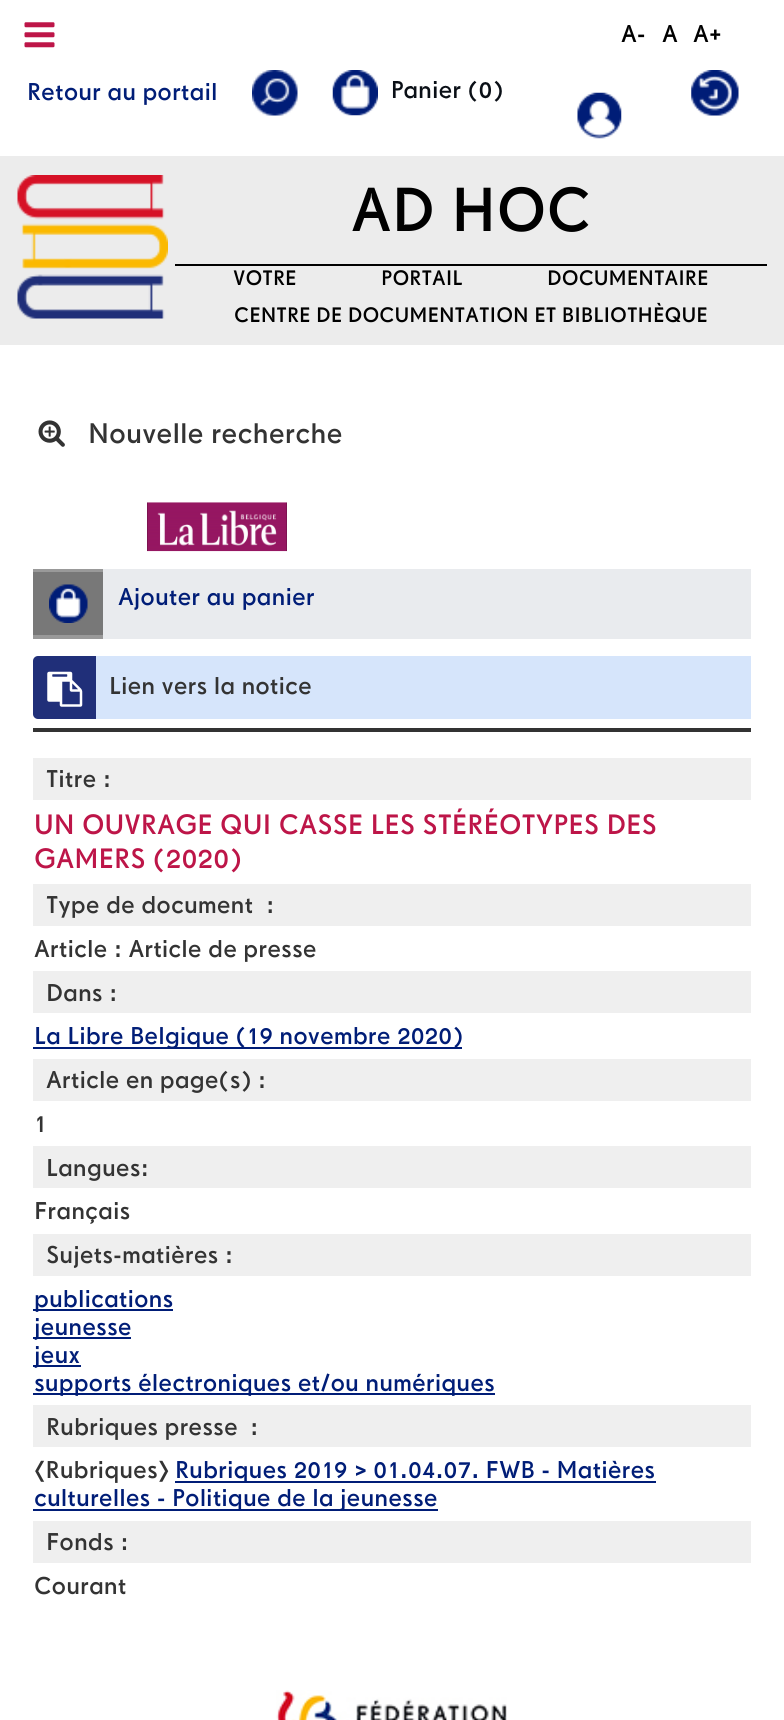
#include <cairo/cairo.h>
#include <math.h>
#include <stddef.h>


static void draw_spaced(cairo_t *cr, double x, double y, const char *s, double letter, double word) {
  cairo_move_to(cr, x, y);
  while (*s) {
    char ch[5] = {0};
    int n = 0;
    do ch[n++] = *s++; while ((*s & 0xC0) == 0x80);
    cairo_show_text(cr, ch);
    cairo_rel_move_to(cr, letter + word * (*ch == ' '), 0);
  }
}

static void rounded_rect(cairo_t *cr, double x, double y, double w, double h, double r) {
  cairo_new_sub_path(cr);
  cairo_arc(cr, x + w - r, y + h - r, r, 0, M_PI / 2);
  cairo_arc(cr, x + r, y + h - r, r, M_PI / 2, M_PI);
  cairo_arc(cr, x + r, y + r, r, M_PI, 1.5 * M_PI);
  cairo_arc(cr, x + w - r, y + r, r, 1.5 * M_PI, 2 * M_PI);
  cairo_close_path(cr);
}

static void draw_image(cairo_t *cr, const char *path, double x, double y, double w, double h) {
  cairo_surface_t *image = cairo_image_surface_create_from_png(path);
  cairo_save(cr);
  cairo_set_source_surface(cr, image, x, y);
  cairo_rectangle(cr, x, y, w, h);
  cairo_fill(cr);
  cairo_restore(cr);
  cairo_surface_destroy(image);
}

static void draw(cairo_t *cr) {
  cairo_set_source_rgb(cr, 1, 1, 1);
  cairo_paint(cr);
  draw_image(cr, "images/1.png", 24, 22, 31, 26);
  draw_image(cr, "images/2.png", 252, 70, 46, 46);
  draw_image(cr, "images/3.png", 332, 70, 170, 46);
  draw_image(cr, "images/4.png", 577, 92, 45, 47);
  draw_image(cr, "images/5.png", 691, 70, 48, 46);
  cairo_set_source_rgb(cr, 236 / 255.0, 236 / 255.0, 236 / 255.0);
  cairo_rectangle(cr, 0, 156, 784, 189);
  cairo_fill(cr);
  draw_image(cr, "images/6.png", 17, 175, 151, 144);
  cairo_set_source_rgb(cr, 0, 0, 0);
  cairo_rectangle(cr, 175, 264, 592, 2);
  cairo_fill(cr);
  draw_image(cr, "images/7.png", 38, 420, 27, 27);
  draw_image(cr, "images/8.png", 147, 502, 140, 50);
  cairo_set_source_rgb(cr, 153 / 255.0, 153 / 255.0, 153 / 255.0);
  cairo_rectangle(cr, 33, 569, 70, 70);
  cairo_fill(cr);
  cairo_set_source_rgb(cr, 120 / 255.0, 120 / 255.0, 120 / 255.0);
  cairo_rectangle(cr, 33, 572, 70, 63);
  cairo_fill(cr);
  draw_image(cr, "images/9.png", 49, 584, 39, 39);
  cairo_set_source_rgb(cr, 233 / 255.0, 235 / 255.0, 238 / 255.0);
  cairo_rectangle(cr, 103, 569, 648, 70);
  cairo_fill(cr);
  cairo_set_source_rgb(cr, 32 / 255.0, 47 / 255.0, 121 / 255.0);
  rounded_rect(cr, 33, 656, 718, 63, 5);
  cairo_fill(cr);
  draw_image(cr, "images/10.png", 47, 671, 36, 36);
  cairo_set_source_rgb(cr, 214 / 255.0, 229 / 255.0, 251 / 255.0);
  cairo_rectangle(cr, 96, 656, 655, 63);
  cairo_fill(cr);
  cairo_set_source_rgb(cr, 51 / 255.0, 51 / 255.0, 51 / 255.0);
  cairo_rectangle(cr, 33, 728, 718, 4);
  cairo_fill(cr);
  cairo_set_source_rgb(cr, 239 / 255.0, 239 / 255.0, 239 / 255.0);
  cairo_rectangle(cr, 33, 758, 718, 42);
  cairo_fill(cr);
  cairo_rectangle(cr, 33, 884, 718, 42);
  cairo_fill(cr);
  cairo_rectangle(cr, 33, 971, 718, 42);
  cairo_fill(cr);
  cairo_set_source_rgb(cr, 0, 29 / 255.0, 119 / 255.0);
  cairo_rectangle(cr, 33, 1047, 429, 2);
  cairo_fill(cr);
  cairo_set_source_rgb(cr, 239 / 255.0, 239 / 255.0, 239 / 255.0);
  cairo_rectangle(cr, 33, 1059, 718, 42);
  cairo_fill(cr);
  cairo_rectangle(cr, 33, 1146, 718, 42);
  cairo_fill(cr);
  cairo_rectangle(cr, 33, 1234, 718, 42);
  cairo_fill(cr);
  cairo_set_source_rgb(cr, 0, 29 / 255.0, 119 / 255.0);
  cairo_rectangle(cr, 33, 1309, 140, 2);
  cairo_fill(cr);
  cairo_rectangle(cr, 33, 1337, 98, 2);
  cairo_fill(cr);
  cairo_rectangle(cr, 33, 1365, 48, 2);
  cairo_fill(cr);
  cairo_rectangle(cr, 33, 1393, 462, 2);
  cairo_fill(cr);
  cairo_set_source_rgb(cr, 239 / 255.0, 239 / 255.0, 239 / 255.0);
  cairo_rectangle(cr, 33, 1405, 718, 42);
  cairo_fill(cr);
  cairo_set_source_rgb(cr, 0, 29 / 255.0, 119 / 255.0);
  cairo_rectangle(cr, 175, 1481, 481, 2);
  cairo_fill(cr);
  cairo_rectangle(cr, 33, 1509, 405, 2);
  cairo_fill(cr);
  cairo_set_source_rgb(cr, 239 / 255.0, 239 / 255.0, 239 / 255.0);
  cairo_rectangle(cr, 33, 1521, 718, 42);
  cairo_fill(cr);
  draw_image(cr, "images/11.png", 276, 1690, 231, 30);
  cairo_select_font_face(cr, "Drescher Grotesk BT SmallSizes", CAIRO_FONT_SLANT_NORMAL, CAIRO_FONT_WEIGHT_NORMAL);
  cairo_set_font_size(cr, 24.5);
  cairo_set_source_rgb(cr, 0, 0, 0);
  cairo_move_to(cr, 621, 42);
  cairo_show_text(cr, "A-");
  cairo_move_to(cr, 662, 42);
  cairo_show_text(cr, "A");
  cairo_move_to(cr, 693, 42);
  cairo_show_text(cr, "A+");
  cairo_set_source_rgb(cr, 0, 29 / 255.0, 119 / 255.0);
  cairo_move_to(cr, 27, 100);
  cairo_show_text(cr, "Retour au portail");
  cairo_set_font_size(cr, 62.5);
  cairo_set_source_rgb(cr, 0, 0, 0);
  cairo_move_to(cr, 351, 231);
  cairo_show_text(cr, "AD HOC");
  cairo_set_font_size(cr, 21.1);
  draw_spaced(cr, 233, 285, "VOTRE PORTAIL DOCUMENTAIRE", 0, 79);
  cairo_move_to(cr, 234, 322);
  cairo_show_text(cr, "CENTRE DE DOCUMENTATION ET BIBLIOTHÈQUE");
  cairo_set_font_size(cr, 28.5);
  cairo_set_source_rgb(cr, 51 / 255.0, 51 / 255.0, 51 / 255.0);
  cairo_move_to(cr, 88, 443);
  cairo_show_text(cr, "Nouvelle recherche");
  cairo_set_font_size(cr, 24.5);
  cairo_set_source_rgb(cr, 0, 29 / 255.0, 119 / 255.0);
  cairo_move_to(cr, 118, 605);
  cairo_show_text(cr, "Ajouter au panier");
  cairo_set_source_rgb(cr, 51 / 255.0, 51 / 255.0, 51 / 255.0);
  cairo_move_to(cr, 109, 694);
  cairo_show_text(cr, "Lien vers la notice");
  cairo_move_to(cr, 46, 787);
  cairo_show_text(cr, "Titre :");
  cairo_set_font_size(cr, 28.2);
  cairo_set_source_rgb(cr, 189 / 255.0, 21 / 255.0, 72 / 255.0);
  cairo_move_to(cr, 34, 834);
  cairo_show_text(cr, "UN OUVRAGE QUI CASSE LES STÉRÉOTYPES DES");
  cairo_move_to(cr, 34, 868);
  cairo_show_text(cr, "GAMERS (2020)");
  cairo_set_font_size(cr, 24.5);
  cairo_set_source_rgb(cr, 51 / 255.0, 51 / 255.0, 51 / 255.0);
  cairo_move_to(cr, 46, 913);
  cairo_show_text(cr, "Type de document");
  cairo_move_to(cr, 266, 913);
  cairo_show_text(cr, ":");
  cairo_move_to(cr, 34, 957);
  cairo_show_text(cr, "Article : Article de presse");
  cairo_move_to(cr, 46, 1001);
  cairo_show_text(cr, "Dans :");
  cairo_set_source_rgb(cr, 0, 29 / 255.0, 119 / 255.0);
  cairo_move_to(cr, 34, 1044);
  cairo_show_text(cr, "La Libre Belgique (19 novembre 2020)");
  cairo_set_source_rgb(cr, 51 / 255.0, 51 / 255.0, 51 / 255.0);
  cairo_move_to(cr, 46, 1088);
  cairo_show_text(cr, "Article en page(s) :");
  cairo_move_to(cr, 34, 1132);
  cairo_show_text(cr, "1");
  cairo_move_to(cr, 46, 1176);
  cairo_show_text(cr, "Langues:");
  cairo_move_to(cr, 34, 1219);
  cairo_show_text(cr, "Français");
  cairo_move_to(cr, 46, 1263);
  cairo_show_text(cr, "Sujets-matières :");
  cairo_set_source_rgb(cr, 0, 29 / 255.0, 119 / 255.0);
  cairo_move_to(cr, 34, 1307);
  cairo_show_text(cr, "publications");
  cairo_move_to(cr, 34, 1335);
  cairo_show_text(cr, "jeunesse");
  cairo_move_to(cr, 34, 1363);
  cairo_show_text(cr, "jeux");
  cairo_move_to(cr, 34, 1391);
  cairo_show_text(cr, "supports électroniques et/ou numériques");
  cairo_set_source_rgb(cr, 51 / 255.0, 51 / 255.0, 51 / 255.0);
  cairo_move_to(cr, 46, 1435);
  cairo_show_text(cr, "Rubriques presse");
  cairo_move_to(cr, 250, 1435);
  cairo_show_text(cr, ":");
  cairo_move_to(cr, 34, 1478);
  cairo_show_text(cr, "[Rubriques]");
  cairo_set_source_rgb(cr, 0, 29 / 255.0, 119 / 255.0);
  cairo_move_to(cr, 175, 1478);
  cairo_show_text(cr, "Rubriques 2019 > 01.04.07. FWB - Matières");
  cairo_move_to(cr, 34, 1506);
  cairo_show_text(cr, "culturelles - Politique de la jeunesse");
  cairo_set_source_rgb(cr, 51 / 255.0, 51 / 255.0, 51 / 255.0);
  cairo_move_to(cr, 46, 1550);
  cairo_show_text(cr, "Fonds :");
  cairo_move_to(cr, 34, 1594);
  cairo_show_text(cr, "Courant");
}

int main(void) {
  cairo_surface_t *surface = cairo_image_surface_create(CAIRO_FORMAT_RGB24, 784, 1720);
  cairo_t *cr = cairo_create(surface);
  cairo_font_options_t *options = cairo_font_options_create();
  cairo_font_options_set_hint_metrics(options, CAIRO_HINT_METRICS_OFF);
  cairo_font_options_set_hint_style(options, CAIRO_HINT_STYLE_NONE);
  cairo_set_font_options(cr, options);
  cairo_set_miter_limit(cr, 4);
  draw(cr);
  cairo_surface_write_to_png(surface, "out.png");
  cairo_font_options_destroy(options);
  cairo_destroy(cr);
  cairo_surface_destroy(surface);
  return 0;
}
